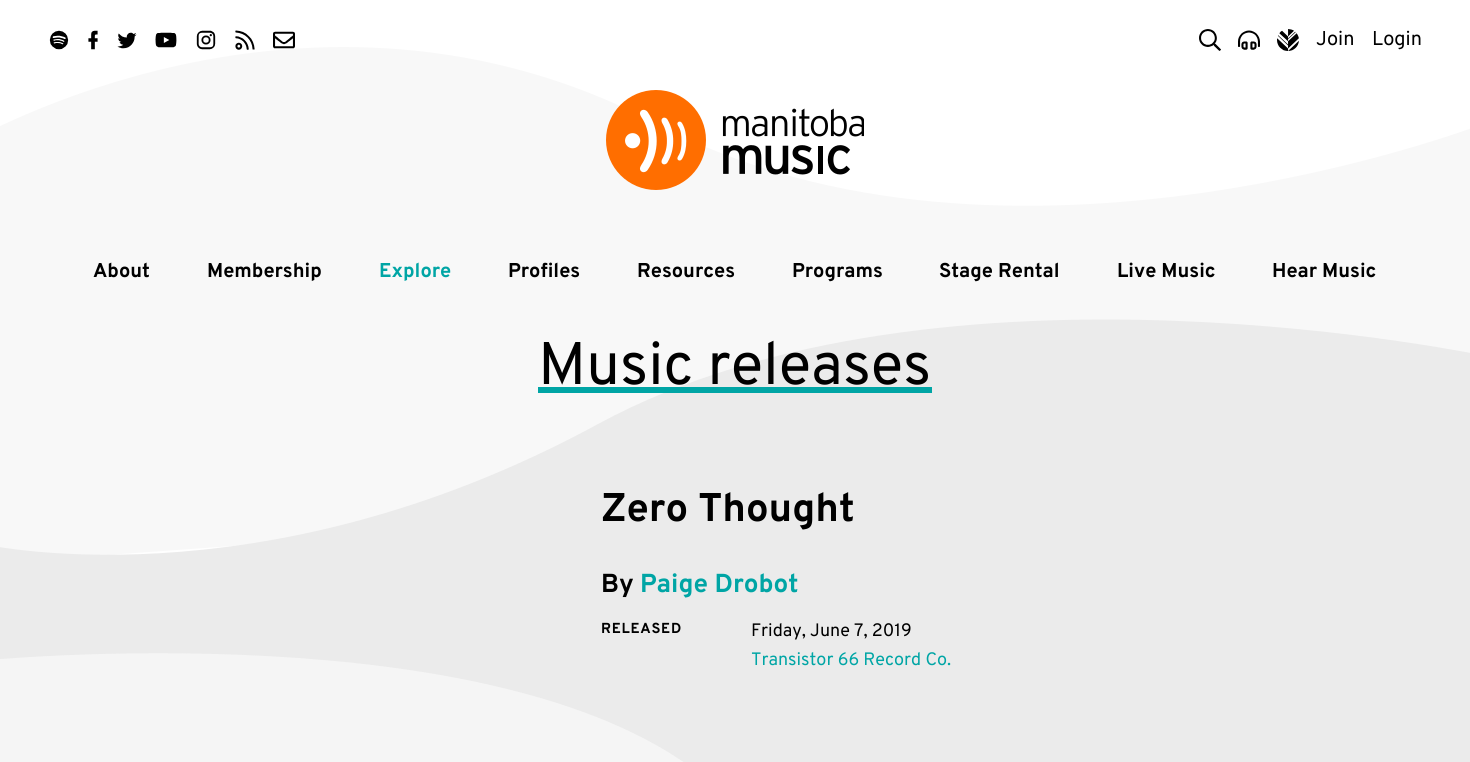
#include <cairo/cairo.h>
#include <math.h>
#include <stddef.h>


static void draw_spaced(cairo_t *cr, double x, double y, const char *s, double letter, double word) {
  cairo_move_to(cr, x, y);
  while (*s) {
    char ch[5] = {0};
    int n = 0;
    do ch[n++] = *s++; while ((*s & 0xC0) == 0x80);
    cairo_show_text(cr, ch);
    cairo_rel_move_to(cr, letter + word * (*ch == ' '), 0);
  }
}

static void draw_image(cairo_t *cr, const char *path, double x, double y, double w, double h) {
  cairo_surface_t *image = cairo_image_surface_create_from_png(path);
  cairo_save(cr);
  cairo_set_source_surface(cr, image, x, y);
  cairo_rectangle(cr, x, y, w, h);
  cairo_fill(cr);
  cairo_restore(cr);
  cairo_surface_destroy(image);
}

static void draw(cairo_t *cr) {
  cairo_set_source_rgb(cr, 1, 1, 1);
  cairo_paint(cr);
  cairo_set_source_rgb(cr, 248 / 255.0, 248 / 255.0, 248 / 255.0);
  cairo_new_path(cr);
  cairo_move_to(cr, -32, 142);
  cairo_curve_to(cr, -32, 144, 308, -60, 657, 124);
  cairo_curve_to(cr, 1007, 308, 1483, 124, 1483, 124);
  cairo_line_to(cr, 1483, 456);
  cairo_line_to(cr, -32, 565);
  cairo_close_path(cr);
  cairo_fill(cr);
  draw_image(cr, "images/1.png", 49, 30, 20, 20);
  draw_image(cr, "images/2.png", 88, 30, 10, 20);
  draw_image(cr, "images/3.png", 117, 32, 20, 17);
  draw_image(cr, "images/4.png", 155, 32, 22, 16);
  draw_image(cr, "images/5.png", 196, 30, 20, 20);
  draw_image(cr, "images/6.png", 235, 30, 20, 20);
  draw_image(cr, "images/7.png", 273, 31, 22, 18);
  draw_image(cr, "images/8.png", 1199, 29, 22, 22);
  draw_image(cr, "images/9.png", 1238, 30, 22, 20);
  draw_image(cr, "images/10.png", 1277, 29, 22, 22);
  draw_image(cr, "images/11.png", 606, 90, 258, 100);
  cairo_set_source_rgb(cr, 235 / 255.0, 235 / 255.0, 235 / 255.0);
  cairo_new_path(cr);
  cairo_move_to(cr, 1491, 357);
  cairo_curve_to(cr, 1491, 357, 941, 238, 598, 424);
  cairo_curve_to(cr, 256, 610, -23, 543, -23, 543);
  cairo_line_to(cr, -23, 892);
  cairo_line_to(cr, 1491, 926);
  cairo_close_path(cr);
  cairo_fill(cr);
  cairo_set_source_rgb(cr, 245 / 255.0, 245 / 255.0, 245 / 255.0);
  cairo_new_path(cr);
  cairo_move_to(cr, -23, 661);
  cairo_curve_to(cr, -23, 661, 509, 607, 712, 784);
  cairo_curve_to(cr, 916, 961, 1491, 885, 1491, 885);
  cairo_line_to(cr, 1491, 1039);
  cairo_line_to(cr, -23, 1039);
  cairo_close_path(cr);
  cairo_fill(cr);
  cairo_set_source_rgb(cr, 0, 165 / 255.0, 165 / 255.0);
  cairo_rectangle(cr, 538, 387, 394, 6);
  cairo_fill(cr);
  cairo_select_font_face(cr, "Overpass", CAIRO_FONT_SLANT_NORMAL, CAIRO_FONT_WEIGHT_NORMAL);
  cairo_set_font_size(cr, 20);
  cairo_set_source_rgb(cr, 0, 0, 0);
  cairo_move_to(cr, 1316, 45);
  cairo_show_text(cr, "Join");
  cairo_move_to(cr, 1372, 45);
  cairo_show_text(cr, "Login");
  cairo_select_font_face(cr, "Overpass", CAIRO_FONT_SLANT_NORMAL, CAIRO_FONT_WEIGHT_BOLD);
  cairo_move_to(cr, 93, 277);
  cairo_show_text(cr, "About");
  cairo_move_to(cr, 207, 277);
  cairo_show_text(cr, "Membership");
  cairo_set_source_rgb(cr, 0, 165 / 255.0, 165 / 255.0);
  cairo_move_to(cr, 379, 277);
  cairo_show_text(cr, "Explore");
  cairo_set_source_rgb(cr, 0, 0, 0);
  cairo_move_to(cr, 508, 277);
  cairo_show_text(cr, "Profiles");
  cairo_move_to(cr, 637, 277);
  cairo_show_text(cr, "Resources");
  cairo_move_to(cr, 792, 277);
  cairo_show_text(cr, "Programs");
  cairo_move_to(cr, 939, 277);
  cairo_show_text(cr, "Stage Rental");
  cairo_move_to(cr, 1117, 277);
  cairo_show_text(cr, "Live Music");
  cairo_move_to(cr, 1272, 277);
  cairo_show_text(cr, "Hear Music");
  cairo_select_font_face(cr, "Overpass", CAIRO_FONT_SLANT_NORMAL, CAIRO_FONT_WEIGHT_NORMAL);
  cairo_set_font_size(cr, 60);
  cairo_move_to(cr, 538, 384);
  cairo_show_text(cr, "Music releases");
  cairo_select_font_face(cr, "Overpass", CAIRO_FONT_SLANT_NORMAL, CAIRO_FONT_WEIGHT_BOLD);
  cairo_set_font_size(cr, 40);
  cairo_move_to(cr, 601, 521);
  cairo_show_text(cr, "Zero Thought");
  cairo_set_font_size(cr, 26);
  cairo_move_to(cr, 601, 592);
  cairo_show_text(cr, "By");
  cairo_set_source_rgb(cr, 0, 165 / 255.0, 165 / 255.0);
  cairo_move_to(cr, 640, 592);
  cairo_show_text(cr, "Paige Drobot");
  cairo_set_font_size(cr, 14.5);
  cairo_set_source_rgb(cr, 0, 0, 0);
  draw_spaced(cr, 601, 633, "RELEASED", 0.75, 0);
  cairo_select_font_face(cr, "Overpass", CAIRO_FONT_SLANT_NORMAL, CAIRO_FONT_WEIGHT_NORMAL);
  cairo_set_font_size(cr, 18);
  cairo_move_to(cr, 751, 636);
  cairo_show_text(cr, "Friday, June 7, 2019");
  cairo_set_source_rgb(cr, 0, 165 / 255.0, 165 / 255.0);
  cairo_move_to(cr, 751, 665);
  cairo_show_text(cr, "Transistor 66 Record Co.");
}

int main(void) {
  cairo_surface_t *surface = cairo_image_surface_create(CAIRO_FORMAT_RGB24, 1470, 762);
  cairo_t *cr = cairo_create(surface);
  cairo_font_options_t *options = cairo_font_options_create();
  cairo_font_options_set_hint_metrics(options, CAIRO_HINT_METRICS_OFF);
  cairo_font_options_set_hint_style(options, CAIRO_HINT_STYLE_NONE);
  cairo_set_font_options(cr, options);
  cairo_set_miter_limit(cr, 4);
  draw(cr);
  cairo_surface_write_to_png(surface, "out.png");
  cairo_font_options_destroy(options);
  cairo_destroy(cr);
  cairo_surface_destroy(surface);
  return 0;
}
